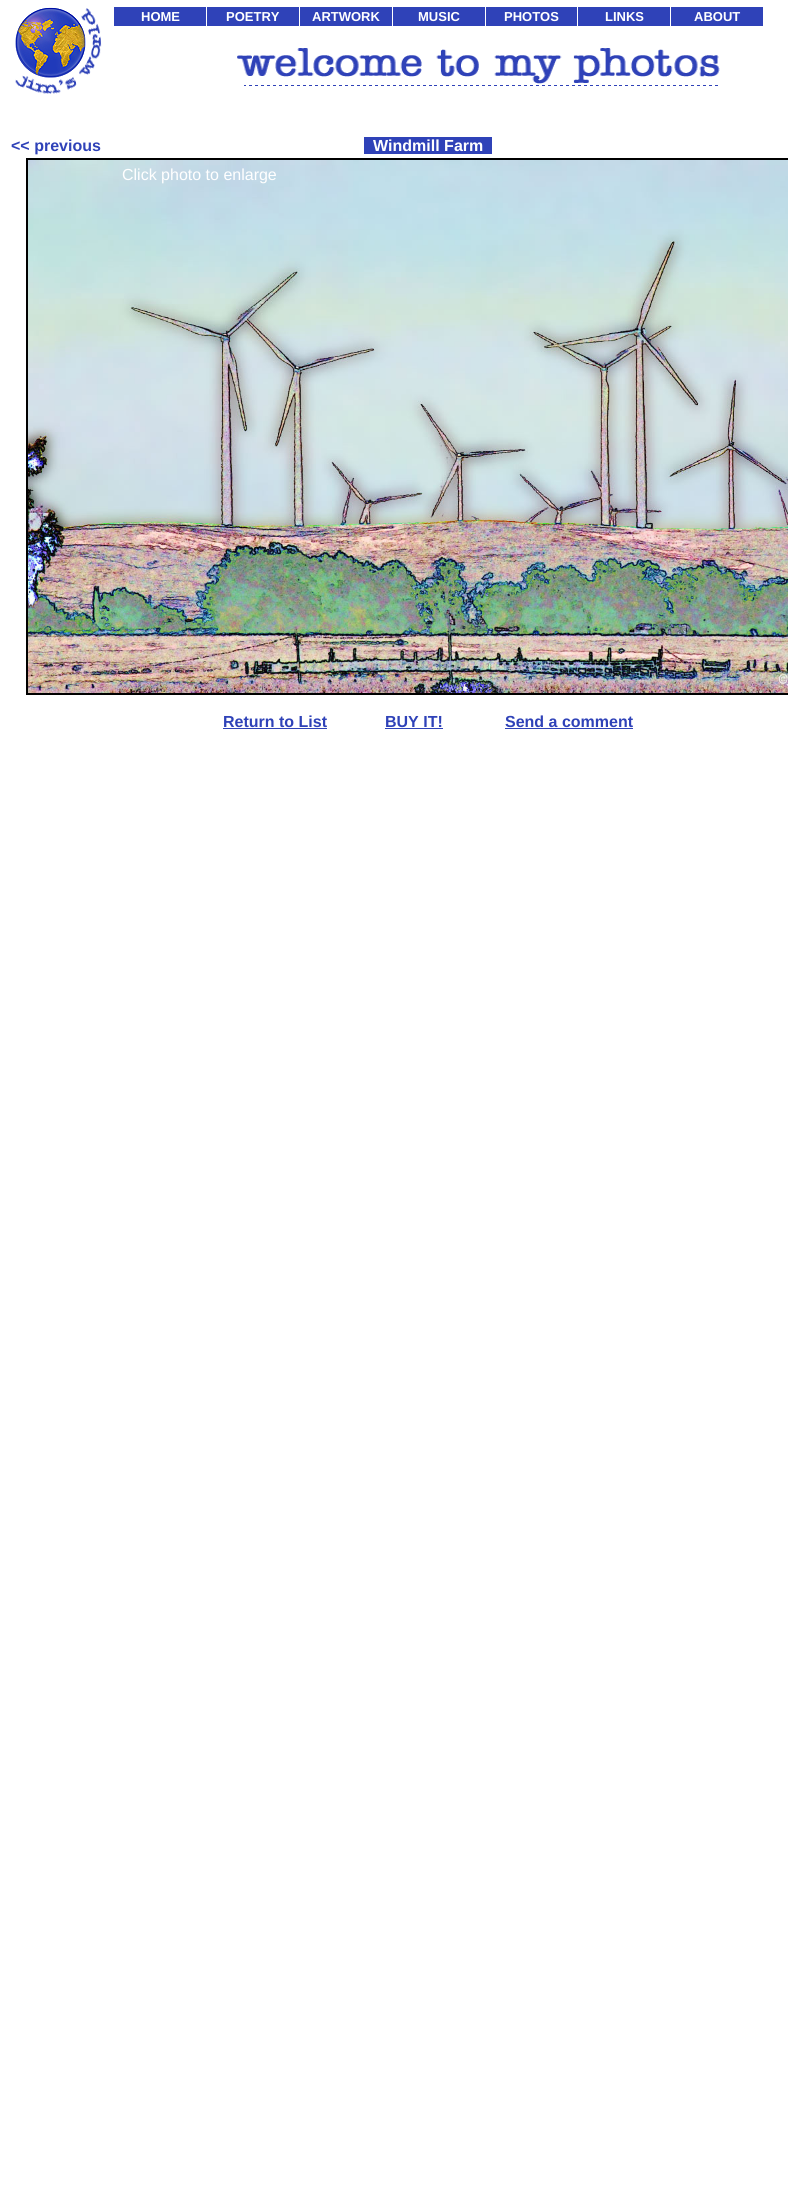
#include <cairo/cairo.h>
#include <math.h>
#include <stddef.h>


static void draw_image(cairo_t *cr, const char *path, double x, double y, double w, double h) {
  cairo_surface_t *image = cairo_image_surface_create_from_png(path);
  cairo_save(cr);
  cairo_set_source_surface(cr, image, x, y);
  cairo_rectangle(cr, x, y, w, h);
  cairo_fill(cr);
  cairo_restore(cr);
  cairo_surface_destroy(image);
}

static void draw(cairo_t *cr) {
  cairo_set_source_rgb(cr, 1, 1, 1);
  cairo_paint(cr);
  draw_image(cr, "images/1.png", 15, 7, 87, 87);
  cairo_set_source_rgb(cr, 47 / 255.0, 66 / 255.0, 184 / 255.0);
  cairo_rectangle(cr, 114, 7, 92, 19);
  cairo_fill(cr);
  cairo_rectangle(cr, 207, 7, 92, 19);
  cairo_fill(cr);
  cairo_rectangle(cr, 300, 7, 92, 19);
  cairo_fill(cr);
  cairo_rectangle(cr, 393, 7, 92, 19);
  cairo_fill(cr);
  cairo_rectangle(cr, 486, 7, 91, 19);
  cairo_fill(cr);
  cairo_rectangle(cr, 578, 7, 92, 19);
  cairo_fill(cr);
  cairo_rectangle(cr, 671, 7, 92, 19);
  cairo_fill(cr);
  draw_image(cr, "images/2.png", 237, 48, 483, 36);
  draw_image(cr, "images/3.png", 244, 85, 474, 1);
  cairo_rectangle(cr, 364, 137, 128, 17);
  cairo_fill(cr);
  cairo_rectangle(cr, 27, 159, 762, 535);
  cairo_set_source_rgb(cr, 0, 0, 0);
  cairo_stroke(cr);
  draw_image(cr, "images/4.png", 28, 160, 760, 533);
  cairo_set_source_rgb(cr, 47 / 255.0, 66 / 255.0, 184 / 255.0);
  cairo_rectangle(cr, 223, 728, 104, 1);
  cairo_fill(cr);
  cairo_rectangle(cr, 385, 728, 58, 1);
  cairo_fill(cr);
  cairo_rectangle(cr, 505, 728, 128, 1);
  cairo_fill(cr);
  cairo_select_font_face(cr, "Liberation Sans", CAIRO_FONT_SLANT_NORMAL, CAIRO_FONT_WEIGHT_BOLD);
  cairo_set_font_size(cr, 13);
  cairo_set_source_rgb(cr, 1, 1, 1);
  cairo_move_to(cr, 141, 21);
  cairo_show_text(cr, "HOME");
  cairo_move_to(cr, 226, 21);
  cairo_show_text(cr, "POETRY");
  cairo_move_to(cr, 312, 21);
  cairo_show_text(cr, "ARTWORK");
  cairo_move_to(cr, 418, 21);
  cairo_show_text(cr, "MUSIC");
  cairo_move_to(cr, 504, 21);
  cairo_show_text(cr, "PHOTOS");
  cairo_move_to(cr, 605, 21);
  cairo_show_text(cr, "LINKS");
  cairo_move_to(cr, 694, 21);
  cairo_show_text(cr, "ABOUT");
  cairo_set_font_size(cr, 16);
  cairo_set_source_rgb(cr, 47 / 255.0, 66 / 255.0, 184 / 255.0);
  cairo_move_to(cr, 11, 151);
  cairo_show_text(cr, "<< previous");
  cairo_set_source_rgb(cr, 1, 1, 1);
  cairo_move_to(cr, 373, 151);
  cairo_show_text(cr, "Windmill Farm");
  cairo_select_font_face(cr, "Liberation Sans", CAIRO_FONT_SLANT_NORMAL, CAIRO_FONT_WEIGHT_NORMAL);
  cairo_move_to(cr, 122, 180);
  cairo_show_text(cr, "Click photo to enlarge");
  cairo_select_font_face(cr, "Liberation Sans", CAIRO_FONT_SLANT_NORMAL, CAIRO_FONT_WEIGHT_BOLD);
  cairo_set_source_rgb(cr, 47 / 255.0, 66 / 255.0, 184 / 255.0);
  cairo_move_to(cr, 223, 727);
  cairo_show_text(cr, "Return to List");
  cairo_move_to(cr, 385, 727);
  cairo_show_text(cr, "BUY IT!");
  cairo_move_to(cr, 505, 727);
  cairo_show_text(cr, "Send a comment");
}

int main(void) {
  cairo_surface_t *surface = cairo_image_surface_create(CAIRO_FORMAT_RGB24, 788, 2196);
  cairo_t *cr = cairo_create(surface);
  cairo_font_options_t *options = cairo_font_options_create();
  cairo_font_options_set_hint_metrics(options, CAIRO_HINT_METRICS_OFF);
  cairo_font_options_set_hint_style(options, CAIRO_HINT_STYLE_NONE);
  cairo_set_font_options(cr, options);
  cairo_set_miter_limit(cr, 4);
  draw(cr);
  cairo_surface_write_to_png(surface, "out.png");
  cairo_font_options_destroy(options);
  cairo_destroy(cr);
  cairo_surface_destroy(surface);
  return 0;
}
